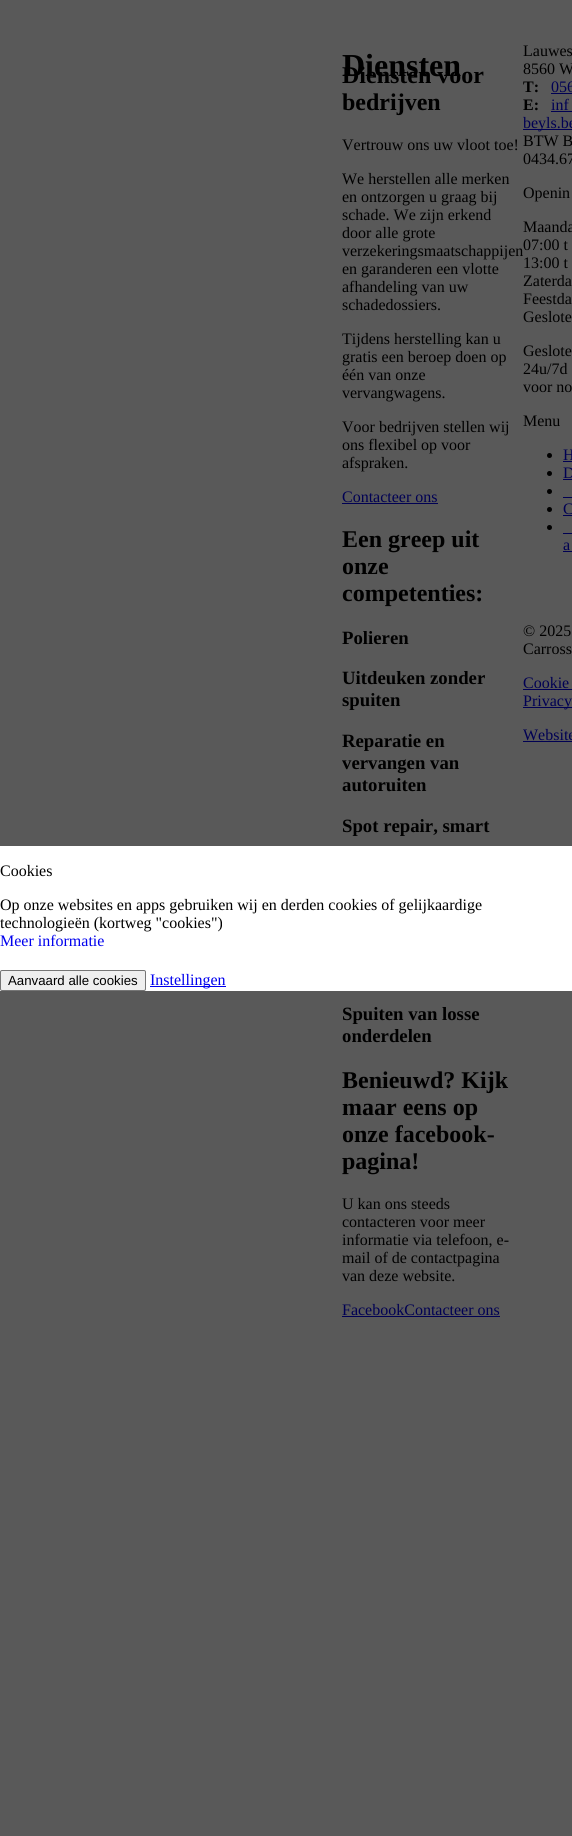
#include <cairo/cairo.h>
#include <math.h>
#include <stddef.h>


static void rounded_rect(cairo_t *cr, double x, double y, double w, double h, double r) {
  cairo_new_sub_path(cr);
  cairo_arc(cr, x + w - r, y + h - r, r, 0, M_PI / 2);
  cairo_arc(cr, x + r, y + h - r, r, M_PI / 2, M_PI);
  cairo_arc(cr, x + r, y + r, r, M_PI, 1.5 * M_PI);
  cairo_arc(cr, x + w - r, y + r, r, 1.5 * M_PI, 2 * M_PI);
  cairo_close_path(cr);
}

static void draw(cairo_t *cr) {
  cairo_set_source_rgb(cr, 89 / 255.0, 89 / 255.0, 89 / 255.0);
  cairo_paint(cr);
  cairo_set_source_rgb(cr, 0, 0, 83 / 255.0);
  cairo_rectangle(cr, 342, 503, 96, 1);
  cairo_fill(cr);
  cairo_rectangle(cr, 342, 1316, 158, 1);
  cairo_fill(cr);
  cairo_rectangle(cr, 551, 93, 21, 1);
  cairo_fill(cr);
  cairo_rectangle(cr, 551, 111, 21, 1);
  cairo_fill(cr);
  cairo_rectangle(cr, 523, 129, 49, 1);
  cairo_fill(cr);
  cairo_set_source_rgb(cr, 0, 0, 0);
  cairo_arc(cr, 549.5, 455.5, 2.5, 0, 2 * M_PI);
  cairo_fill(cr);
  cairo_set_source_rgb(cr, 0, 0, 83 / 255.0);
  cairo_rectangle(cr, 563, 461, 9, 1);
  cairo_fill(cr);
  cairo_set_source_rgb(cr, 0, 0, 0);
  cairo_arc(cr, 549.5, 473.5, 2.5, 0, 2 * M_PI);
  cairo_fill(cr);
  cairo_set_source_rgb(cr, 0, 0, 83 / 255.0);
  cairo_rectangle(cr, 563, 479, 9, 1);
  cairo_fill(cr);
  cairo_set_source_rgb(cr, 0, 0, 0);
  cairo_arc(cr, 549.5, 491.5, 2.5, 0, 2 * M_PI);
  cairo_fill(cr);
  cairo_set_source_rgb(cr, 0, 0, 83 / 255.0);
  cairo_rectangle(cr, 563, 497, 9, 1);
  cairo_fill(cr);
  cairo_set_source_rgb(cr, 0, 0, 0);
  cairo_arc(cr, 549.5, 509.5, 2.5, 0, 2 * M_PI);
  cairo_fill(cr);
  cairo_set_source_rgb(cr, 0, 0, 83 / 255.0);
  cairo_rectangle(cr, 563, 515, 9, 1);
  cairo_fill(cr);
  cairo_set_source_rgb(cr, 0, 0, 0);
  cairo_arc(cr, 549.5, 527.5, 2.5, 0, 2 * M_PI);
  cairo_fill(cr);
  cairo_set_source_rgb(cr, 0, 0, 83 / 255.0);
  cairo_rectangle(cr, 563, 533, 9, 1);
  cairo_fill(cr);
  cairo_rectangle(cr, 563, 551, 9, 1);
  cairo_fill(cr);
  cairo_rectangle(cr, 523, 689, 49, 1);
  cairo_fill(cr);
  cairo_rectangle(cr, 523, 707, 49, 1);
  cairo_fill(cr);
  cairo_rectangle(cr, 523, 741, 49, 1);
  cairo_fill(cr);
  cairo_set_source_rgb(cr, 1, 1, 1);
  cairo_rectangle(cr, 0, 846, 572, 145);
  cairo_fill(cr);
  cairo_set_source_rgb(cr, 239 / 255.0, 239 / 255.0, 239 / 255.0);
  rounded_rect(cr, 0.5, 970.5, 145, 20, 1.5);
  cairo_fill_preserve(cr);
  cairo_set_source_rgb(cr, 118 / 255.0, 118 / 255.0, 118 / 255.0);
  cairo_set_line_width(cr, 1);
  cairo_stroke(cr);
  cairo_set_source_rgb(cr, 0, 0, 238 / 255.0);
  cairo_rectangle(cr, 150, 986, 76, 1);
  cairo_fill(cr);
  cairo_select_font_face(cr, "Liberation Serif", CAIRO_FONT_SLANT_NORMAL, CAIRO_FONT_WEIGHT_BOLD);
  cairo_set_font_size(cr, 32);
  cairo_set_source_rgb(cr, 0, 0, 0);
  cairo_move_to(cr, 342, 76);
  cairo_show_text(cr, "Diensten");
  cairo_set_font_size(cr, 24);
  cairo_move_to(cr, 342, 83);
  cairo_show_text(cr, "Diensten voor");
  cairo_move_to(cr, 342, 110);
  cairo_show_text(cr, "bedrijven");
  cairo_select_font_face(cr, "Liberation Serif", CAIRO_FONT_SLANT_NORMAL, CAIRO_FONT_WEIGHT_NORMAL);
  cairo_set_font_size(cr, 16);
  cairo_move_to(cr, 342, 150);
  cairo_show_text(cr, "Vertrouw ons uw vloot toe!");
  cairo_move_to(cr, 342, 184);
  cairo_show_text(cr, "We herstellen alle merken");
  cairo_move_to(cr, 342, 202);
  cairo_show_text(cr, "en ontzorgen u graag bij");
  cairo_move_to(cr, 342, 220);
  cairo_show_text(cr, "schade. We zijn erkend");
  cairo_move_to(cr, 342, 238);
  cairo_show_text(cr, "door alle grote");
  cairo_move_to(cr, 342, 256);
  cairo_show_text(cr, "verzekeringsmaatschappijen");
  cairo_move_to(cr, 342, 274);
  cairo_show_text(cr, "en garanderen een vlotte");
  cairo_move_to(cr, 342, 292);
  cairo_show_text(cr, "afhandeling van uw");
  cairo_move_to(cr, 342, 310);
  cairo_show_text(cr, "schadedossiers.");
  cairo_move_to(cr, 342, 344);
  cairo_show_text(cr, "Tijdens herstelling kan u");
  cairo_move_to(cr, 342, 362);
  cairo_show_text(cr, "gratis een beroep doen op");
  cairo_move_to(cr, 342, 380);
  cairo_show_text(cr, "één van onze");
  cairo_move_to(cr, 342, 398);
  cairo_show_text(cr, "vervangwagens.");
  cairo_move_to(cr, 342, 432);
  cairo_show_text(cr, "Voor bedrijven stellen wij");
  cairo_move_to(cr, 342, 450);
  cairo_show_text(cr, "ons flexibel op voor");
  cairo_move_to(cr, 342, 468);
  cairo_show_text(cr, "afspraken.");
  cairo_set_source_rgb(cr, 0, 0, 83 / 255.0);
  cairo_move_to(cr, 342, 502);
  cairo_show_text(cr, "Contacteer ons");
  cairo_select_font_face(cr, "Liberation Serif", CAIRO_FONT_SLANT_NORMAL, CAIRO_FONT_WEIGHT_BOLD);
  cairo_set_font_size(cr, 24);
  cairo_set_source_rgb(cr, 0, 0, 0);
  cairo_move_to(cr, 342, 547);
  cairo_show_text(cr, "Een greep uit");
  cairo_move_to(cr, 342, 574);
  cairo_show_text(cr, "onze");
  cairo_move_to(cr, 342, 601);
  cairo_show_text(cr, "competenties:");
  cairo_set_font_size(cr, 18.75);
  cairo_move_to(cr, 342, 644);
  cairo_show_text(cr, "Polieren");
  cairo_move_to(cr, 342, 684);
  cairo_show_text(cr, "Uitdeuken zonder");
  cairo_move_to(cr, 342, 706);
  cairo_show_text(cr, "spuiten");
  cairo_move_to(cr, 342, 747);
  cairo_show_text(cr, "Reparatie en");
  cairo_move_to(cr, 342, 769);
  cairo_show_text(cr, "vervangen van");
  cairo_move_to(cr, 342, 791);
  cairo_show_text(cr, "autoruiten");
  cairo_move_to(cr, 342, 832);
  cairo_show_text(cr, "Spot repair, smart");
  cairo_move_to(cr, 342, 1020);
  cairo_show_text(cr, "Spuiten van losse");
  cairo_move_to(cr, 342, 1042);
  cairo_show_text(cr, "onderdelen");
  cairo_set_font_size(cr, 24);
  cairo_move_to(cr, 342, 1088);
  cairo_show_text(cr, "Benieuwd? Kijk");
  cairo_move_to(cr, 342, 1115);
  cairo_show_text(cr, "maar eens op");
  cairo_move_to(cr, 342, 1142);
  cairo_show_text(cr, "onze facebook-");
  cairo_move_to(cr, 342, 1169);
  cairo_show_text(cr, "pagina!");
  cairo_select_font_face(cr, "Liberation Serif", CAIRO_FONT_SLANT_NORMAL, CAIRO_FONT_WEIGHT_NORMAL);
  cairo_set_font_size(cr, 16);
  cairo_move_to(cr, 342, 1209);
  cairo_show_text(cr, "U kan ons steeds");
  cairo_move_to(cr, 342, 1227);
  cairo_show_text(cr, "contacteren voor meer");
  cairo_move_to(cr, 342, 1245);
  cairo_show_text(cr, "informatie via telefoon, e-");
  cairo_move_to(cr, 342, 1263);
  cairo_show_text(cr, "mail of de contactpagina");
  cairo_move_to(cr, 342, 1281);
  cairo_show_text(cr, "van deze website.");
  cairo_set_source_rgb(cr, 0, 0, 83 / 255.0);
  cairo_move_to(cr, 342, 1315);
  cairo_show_text(cr, "FacebookContacteer ons");
  cairo_set_source_rgb(cr, 0, 0, 0);
  cairo_move_to(cr, 523, 56);
  cairo_show_text(cr, "Lauwes");
  cairo_move_to(cr, 523, 74);
  cairo_show_text(cr, "8560 W");
  cairo_select_font_face(cr, "Liberation Serif", CAIRO_FONT_SLANT_NORMAL, CAIRO_FONT_WEIGHT_BOLD);
  cairo_move_to(cr, 523, 92);
  cairo_show_text(cr, "T:");
  cairo_select_font_face(cr, "Liberation Serif", CAIRO_FONT_SLANT_NORMAL, CAIRO_FONT_WEIGHT_NORMAL);
  cairo_set_source_rgb(cr, 0, 0, 83 / 255.0);
  cairo_move_to(cr, 551, 92);
  cairo_show_text(cr, "056");
  cairo_select_font_face(cr, "Liberation Serif", CAIRO_FONT_SLANT_NORMAL, CAIRO_FONT_WEIGHT_BOLD);
  cairo_set_source_rgb(cr, 0, 0, 0);
  cairo_move_to(cr, 523, 110);
  cairo_show_text(cr, "E:");
  cairo_select_font_face(cr, "Liberation Serif", CAIRO_FONT_SLANT_NORMAL, CAIRO_FONT_WEIGHT_NORMAL);
  cairo_set_source_rgb(cr, 0, 0, 83 / 255.0);
  cairo_move_to(cr, 551, 110);
  cairo_show_text(cr, "inf");
  cairo_move_to(cr, 523, 128);
  cairo_show_text(cr, "beyls.be");
  cairo_set_source_rgb(cr, 0, 0, 0);
  cairo_move_to(cr, 523, 146);
  cairo_show_text(cr, "BTW B");
  cairo_move_to(cr, 523, 164);
  cairo_show_text(cr, "0434.67");
  cairo_move_to(cr, 523, 198);
  cairo_show_text(cr, "Openin");
  cairo_move_to(cr, 523, 232);
  cairo_show_text(cr, "Maanda");
  cairo_move_to(cr, 523, 250);
  cairo_show_text(cr, "07:00 t");
  cairo_move_to(cr, 523, 268);
  cairo_show_text(cr, "13:00 t");
  cairo_move_to(cr, 523, 286);
  cairo_show_text(cr, "Zaterda");
  cairo_move_to(cr, 523, 304);
  cairo_show_text(cr, "Feestda");
  cairo_move_to(cr, 523, 322);
  cairo_show_text(cr, "Geslote");
  cairo_move_to(cr, 523, 356);
  cairo_show_text(cr, "Geslote");
  cairo_move_to(cr, 523, 374);
  cairo_show_text(cr, "24u/7d");
  cairo_move_to(cr, 523, 392);
  cairo_show_text(cr, "voor no");
  cairo_move_to(cr, 523, 426);
  cairo_show_text(cr, "Menu");
  cairo_set_source_rgb(cr, 0, 0, 83 / 255.0);
  cairo_move_to(cr, 563, 460);
  cairo_show_text(cr, "H");
  cairo_move_to(cr, 563, 478);
  cairo_show_text(cr, "D");
  cairo_move_to(cr, 563, 514);
  cairo_show_text(cr, "C");
  cairo_move_to(cr, 563, 550);
  cairo_show_text(cr, "a");
  cairo_set_source_rgb(cr, 0, 0, 0);
  cairo_move_to(cr, 523, 636);
  cairo_show_text(cr, "© 2025");
  cairo_move_to(cr, 523, 654);
  cairo_show_text(cr, "Carross");
  cairo_set_source_rgb(cr, 0, 0, 83 / 255.0);
  cairo_move_to(cr, 523, 688);
  cairo_show_text(cr, "Cookie");
  cairo_move_to(cr, 523, 706);
  cairo_show_text(cr, "Privacy");
  cairo_move_to(cr, 523, 740);
  cairo_show_text(cr, "Website");
  cairo_set_source_rgb(cr, 0, 0, 0);
  cairo_move_to(cr, 0, 876);
  cairo_show_text(cr, "Cookies");
  cairo_move_to(cr, 0, 910);
  cairo_show_text(cr, "Op onze websites en apps gebruiken wij en derden cookies of gelijkaardige");
  cairo_move_to(cr, 0, 928);
  cairo_show_text(cr, "technologieën (kortweg \"cookies\")");
  cairo_set_source_rgb(cr, 0, 0, 238 / 255.0);
  cairo_move_to(cr, 0, 946);
  cairo_show_text(cr, "Meer informatie");
  cairo_select_font_face(cr, "Liberation Sans", CAIRO_FONT_SLANT_NORMAL, CAIRO_FONT_WEIGHT_NORMAL);
  cairo_set_font_size(cr, 13.25);
  cairo_set_source_rgb(cr, 0, 0, 0);
  cairo_move_to(cr, 8, 985);
  cairo_show_text(cr, "Aanvaard alle cookies");
  cairo_select_font_face(cr, "Liberation Serif", CAIRO_FONT_SLANT_NORMAL, CAIRO_FONT_WEIGHT_NORMAL);
  cairo_set_font_size(cr, 16);
  cairo_set_source_rgb(cr, 0, 0, 238 / 255.0);
  cairo_move_to(cr, 150, 985);
  cairo_show_text(cr, "Instellingen");
}

int main(void) {
  cairo_surface_t *surface = cairo_image_surface_create(CAIRO_FORMAT_RGB24, 572, 1836);
  cairo_t *cr = cairo_create(surface);
  cairo_font_options_t *options = cairo_font_options_create();
  cairo_font_options_set_hint_metrics(options, CAIRO_HINT_METRICS_OFF);
  cairo_font_options_set_hint_style(options, CAIRO_HINT_STYLE_NONE);
  cairo_set_font_options(cr, options);
  cairo_set_miter_limit(cr, 4);
  draw(cr);
  cairo_surface_write_to_png(surface, "out.png");
  cairo_font_options_destroy(options);
  cairo_destroy(cr);
  cairo_surface_destroy(surface);
  return 0;
}
